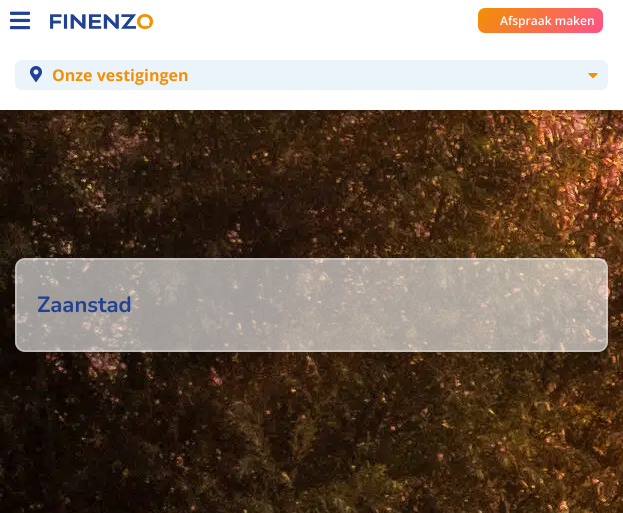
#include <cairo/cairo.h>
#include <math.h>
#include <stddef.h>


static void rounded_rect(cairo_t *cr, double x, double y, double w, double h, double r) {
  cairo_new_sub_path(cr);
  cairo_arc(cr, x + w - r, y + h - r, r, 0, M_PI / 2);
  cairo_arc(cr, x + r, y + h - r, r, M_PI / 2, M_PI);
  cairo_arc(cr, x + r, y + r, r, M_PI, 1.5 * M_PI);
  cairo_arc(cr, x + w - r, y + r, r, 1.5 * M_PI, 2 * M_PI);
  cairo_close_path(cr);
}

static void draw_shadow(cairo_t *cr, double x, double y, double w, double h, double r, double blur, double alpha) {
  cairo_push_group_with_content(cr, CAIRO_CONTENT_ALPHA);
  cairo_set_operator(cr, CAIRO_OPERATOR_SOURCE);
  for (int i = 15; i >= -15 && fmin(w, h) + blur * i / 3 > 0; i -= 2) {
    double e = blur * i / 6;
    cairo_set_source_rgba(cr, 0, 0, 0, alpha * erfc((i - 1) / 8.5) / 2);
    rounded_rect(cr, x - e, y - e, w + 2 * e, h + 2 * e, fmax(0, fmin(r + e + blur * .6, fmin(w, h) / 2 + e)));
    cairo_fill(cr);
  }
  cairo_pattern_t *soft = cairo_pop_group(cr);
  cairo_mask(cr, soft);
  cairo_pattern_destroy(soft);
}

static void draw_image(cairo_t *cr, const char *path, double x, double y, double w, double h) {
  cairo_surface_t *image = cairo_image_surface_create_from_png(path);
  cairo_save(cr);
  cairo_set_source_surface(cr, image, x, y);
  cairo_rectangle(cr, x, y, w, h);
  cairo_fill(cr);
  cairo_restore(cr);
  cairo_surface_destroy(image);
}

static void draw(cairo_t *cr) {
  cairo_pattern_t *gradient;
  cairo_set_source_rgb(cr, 1, 1, 1);
  cairo_paint(cr);
  draw_image(cr, "images/5.png", 0, 110, 623, 403);
  cairo_save(cr);
  cairo_rectangle(cr, 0, 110, 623, 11);
  cairo_clip(cr);
  cairo_set_source_rgb(cr, 0, 0, 0);
  draw_shadow(cr, -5, -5, 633, 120, 0, 7.5, 0.1);
  cairo_restore(cr);
  draw_image(cr, "images/1.png", 10, 11, 20, 19);
  draw_image(cr, "images/2.png", 50, 14, 103, 15);
  gradient = cairo_pattern_create_linear(503, -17, 578, 58);
  cairo_pattern_add_color_stop_rgba(gradient, 0, 243 / 255.0, 144 / 255.0, 3 / 255.0, 1);
  cairo_pattern_add_color_stop_rgba(gradient, 1, 254 / 255.0, 82 / 255.0, 137 / 255.0, 1);
  cairo_set_source(cr, gradient);
  cairo_pattern_destroy(gradient);
  rounded_rect(cr, 478, 8, 125, 25, 7);
  cairo_fill(cr);
  cairo_set_source_rgb(cr, 235 / 255.0, 244 / 255.0, 250 / 255.0);
  rounded_rect(cr, 15, 60, 593, 30, 7);
  cairo_fill(cr);
  draw_image(cr, "images/3.png", 30, 66, 12, 16);
  draw_image(cr, "images/4.png", 588, 73, 10, 6);
  cairo_save(cr);
  cairo_set_fill_rule(cr, CAIRO_FILL_RULE_EVEN_ODD);
  cairo_new_path(cr);
  cairo_move_to(cr, 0, 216);
  cairo_line_to(cr, 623, 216);
  cairo_line_to(cr, 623, 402);
  cairo_line_to(cr, 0, 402);
  cairo_close_path(cr);
  cairo_move_to(cr, 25, 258);
  cairo_line_to(cr, 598, 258);
  cairo_curve_to(cr, 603.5, 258, 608, 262.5, 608, 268);
  cairo_line_to(cr, 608, 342);
  cairo_curve_to(cr, 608, 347.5, 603.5, 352, 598, 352);
  cairo_line_to(cr, 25, 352);
  cairo_curve_to(cr, 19.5, 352, 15, 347.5, 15, 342);
  cairo_line_to(cr, 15, 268);
  cairo_curve_to(cr, 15, 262.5, 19.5, 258, 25, 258);
  cairo_close_path(cr);
  cairo_clip(cr);
  cairo_set_source_rgb(cr, 0, 0, 0);
  draw_shadow(cr, 15, 262, 593, 94, 10, 15, 0.3);
  cairo_restore(cr);
  cairo_set_source_rgba(cr, 1, 1, 1, 0.6);
  rounded_rect(cr, 15, 258, 593, 94, 10);
  cairo_fill(cr);
  rounded_rect(cr, 16, 259, 591, 92, 9);
  cairo_set_source_rgba(cr, 1, 1, 1, 0.3);
  cairo_stroke(cr);
  cairo_select_font_face(cr, "Open Sans SemiBold", CAIRO_FONT_SLANT_NORMAL, CAIRO_FONT_WEIGHT_NORMAL);
  cairo_set_font_size(cr, 12);
  cairo_set_source_rgb(cr, 1, 1, 1);
  cairo_move_to(cr, 500, 25);
  cairo_show_text(cr, "Afspraak maken");
  cairo_select_font_face(cr, "Open Sans", CAIRO_FONT_SLANT_NORMAL, CAIRO_FONT_WEIGHT_BOLD);
  cairo_set_font_size(cr, 16);
  cairo_set_source_rgb(cr, 243 / 255.0, 144 / 255.0, 3 / 255.0);
  cairo_move_to(cr, 52, 81);
  cairo_show_text(cr, "Onze vestigingen");
  cairo_select_font_face(cr, "Nunito", CAIRO_FONT_SLANT_NORMAL, CAIRO_FONT_WEIGHT_BOLD);
  cairo_set_font_size(cr, 22);
  cairo_set_source_rgb(cr, 34 / 255.0, 65 / 255.0, 146 / 255.0);
  cairo_move_to(cr, 37, 312);
  cairo_show_text(cr, "Zaanstad");
}

int main(void) {
  cairo_surface_t *surface = cairo_image_surface_create(CAIRO_FORMAT_RGB24, 623, 513);
  cairo_t *cr = cairo_create(surface);
  cairo_font_options_t *options = cairo_font_options_create();
  cairo_font_options_set_hint_metrics(options, CAIRO_HINT_METRICS_OFF);
  cairo_font_options_set_hint_style(options, CAIRO_HINT_STYLE_NONE);
  cairo_set_font_options(cr, options);
  cairo_set_miter_limit(cr, 4);
  draw(cr);
  cairo_surface_write_to_png(surface, "out.png");
  cairo_font_options_destroy(options);
  cairo_destroy(cr);
  cairo_surface_destroy(surface);
  return 0;
}
